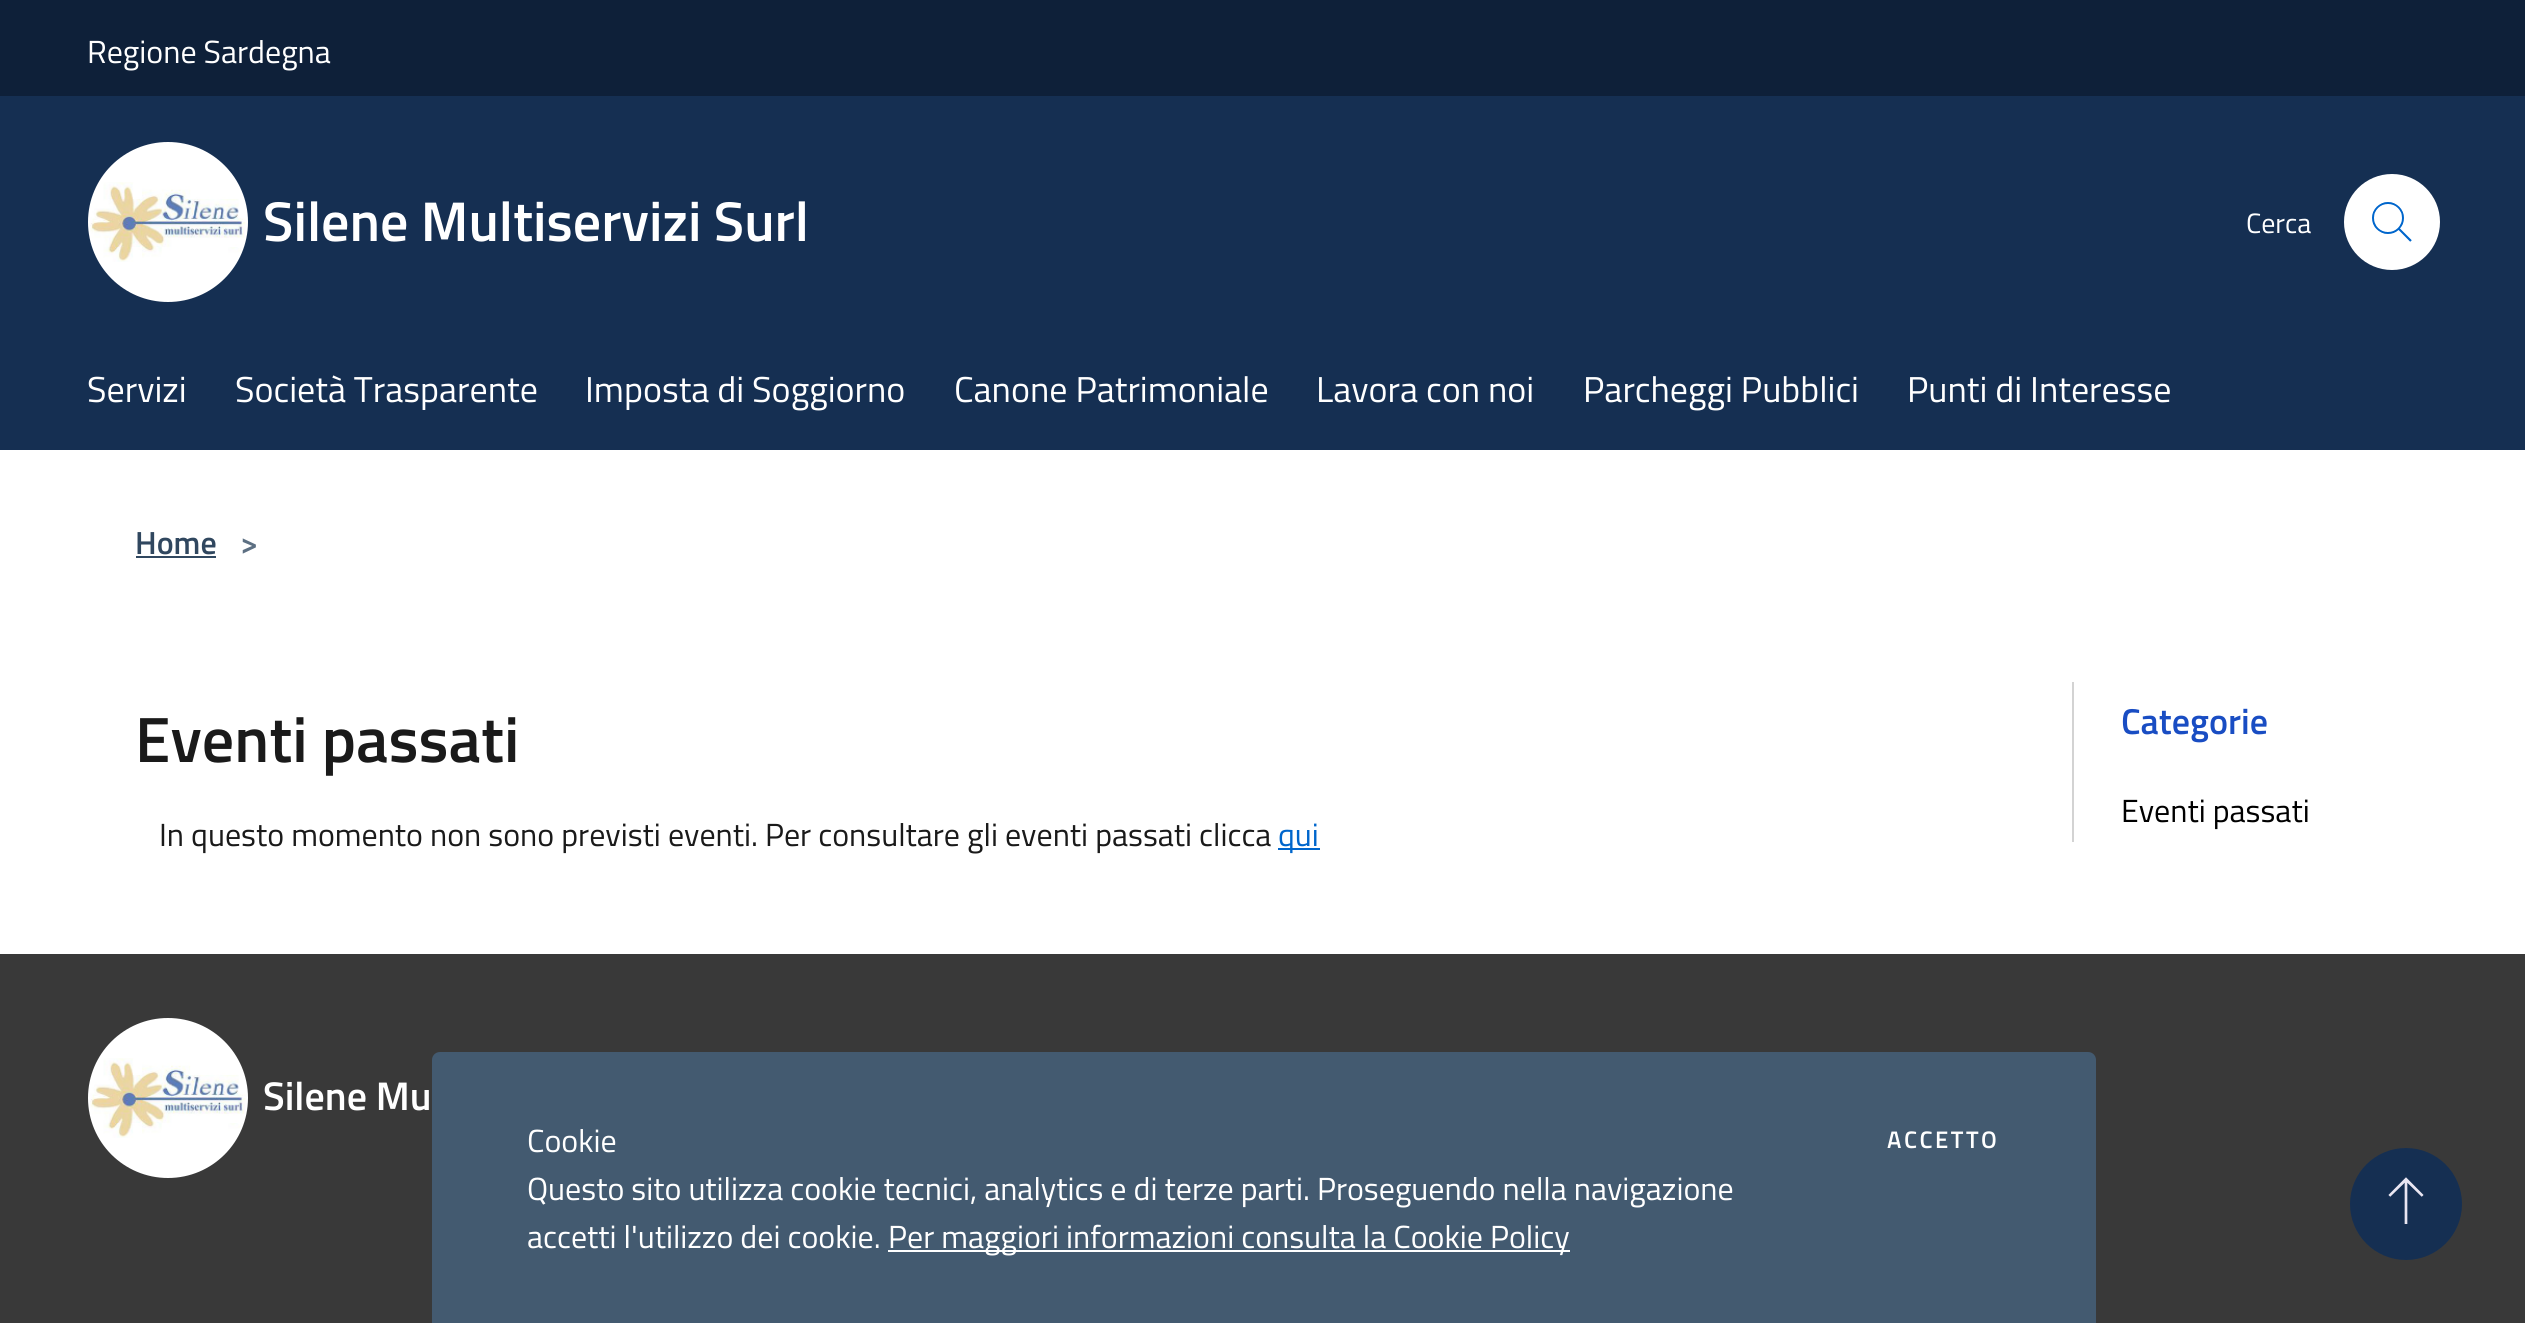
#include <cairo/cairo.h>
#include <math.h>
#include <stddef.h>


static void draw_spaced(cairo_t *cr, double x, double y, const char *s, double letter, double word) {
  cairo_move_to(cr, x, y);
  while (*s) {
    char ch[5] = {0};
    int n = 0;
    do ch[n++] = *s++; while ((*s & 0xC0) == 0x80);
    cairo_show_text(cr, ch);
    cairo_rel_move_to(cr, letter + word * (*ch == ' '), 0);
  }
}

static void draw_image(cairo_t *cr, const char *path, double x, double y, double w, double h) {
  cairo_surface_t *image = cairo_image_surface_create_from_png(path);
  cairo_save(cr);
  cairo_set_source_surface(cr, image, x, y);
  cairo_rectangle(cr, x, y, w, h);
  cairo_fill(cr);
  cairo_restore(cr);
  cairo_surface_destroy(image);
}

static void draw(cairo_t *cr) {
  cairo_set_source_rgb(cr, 1, 1, 1);
  cairo_paint(cr);
  cairo_set_source_rgb(cr, 14 / 255.0, 32 / 255.0, 57 / 255.0);
  cairo_rectangle(cr, 0, 0, 2525, 96);
  cairo_fill(cr);
  cairo_set_source_rgb(cr, 21 / 255.0, 47 / 255.0, 82 / 255.0);
  cairo_rectangle(cr, 0, 96, 2525, 354);
  cairo_fill(cr);
  cairo_set_source_rgb(cr, 1, 1, 1);
  cairo_arc(cr, 168, 222, 79, 0, 2 * M_PI);
  cairo_fill_preserve(cr);
  cairo_stroke(cr);
  draw_image(cr, "images/1.png", 90, 182, 156, 80);
  cairo_arc(cr, 2392, 222, 48, 0, 2 * M_PI);
  cairo_fill(cr);
  draw_image(cr, "images/2.png", 2372, 202, 40, 40);
  cairo_set_source_rgb(cr, 48 / 255.0, 71 / 255.0, 95 / 255.0);
  cairo_rectangle(cr, 136, 556, 80, 2);
  cairo_fill(cr);
  cairo_set_source_rgb(cr, 0, 102 / 255.0, 204 / 255.0);
  cairo_rectangle(cr, 1278, 848, 42, 2);
  cairo_fill(cr);
  cairo_set_source_rgb(cr, 211 / 255.0, 211 / 255.0, 211 / 255.0);
  cairo_rectangle(cr, 2072, 682, 2, 160);
  cairo_fill(cr);
  cairo_set_source_rgb(cr, 57 / 255.0, 57 / 255.0, 57 / 255.0);
  cairo_rectangle(cr, 0, 954, 2525, 369);
  cairo_fill(cr);
  cairo_set_source_rgb(cr, 1, 1, 1);
  cairo_arc(cr, 168, 1098, 79, 0, 2 * M_PI);
  cairo_fill_preserve(cr);
  cairo_stroke(cr);
  draw_image(cr, "images/3.png", 90, 1058, 156, 80);
  cairo_set_source_rgb(cr, 67 / 255.0, 90 / 255.0, 112 / 255.0);
  cairo_new_path(cr);
  cairo_move_to(cr, 440, 1052);
  cairo_line_to(cr, 2088, 1052);
  cairo_curve_to(cr, 2092.5, 1052, 2096, 1055.5, 2096, 1060);
  cairo_line_to(cr, 2096, 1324);
  cairo_line_to(cr, 432, 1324);
  cairo_line_to(cr, 432, 1060);
  cairo_curve_to(cr, 432, 1055.5, 435.5, 1052, 440, 1052);
  cairo_close_path(cr);
  cairo_fill(cr);
  cairo_set_source_rgb(cr, 1, 1, 1);
  cairo_rectangle(cr, 888, 1250, 682, 2);
  cairo_fill(cr);
  cairo_set_source_rgb(cr, 21 / 255.0, 47 / 255.0, 82 / 255.0);
  cairo_arc(cr, 2406, 1204, 56, 0, 2 * M_PI);
  cairo_fill(cr);
  draw_image(cr, "images/4.png", 2388, 1177, 36, 47);
  cairo_select_font_face(cr, "Titillium Web", CAIRO_FONT_SLANT_NORMAL, CAIRO_FONT_WEIGHT_NORMAL);
  cairo_set_font_size(cr, 32);
  cairo_set_source_rgb(cr, 1, 1, 1);
  cairo_move_to(cr, 87, 63);
  cairo_show_text(cr, "Regione Sardegna");
  cairo_select_font_face(cr, "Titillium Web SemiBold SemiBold", CAIRO_FONT_SLANT_NORMAL, CAIRO_FONT_WEIGHT_NORMAL);
  cairo_set_font_size(cr, 56);
  cairo_move_to(cr, 263, 241);
  cairo_show_text(cr, "Silene Multiservizi Surl");
  cairo_select_font_face(cr, "Titillium Web", CAIRO_FONT_SLANT_NORMAL, CAIRO_FONT_WEIGHT_NORMAL);
  cairo_set_font_size(cr, 28);
  cairo_move_to(cr, 2246, 233);
  cairo_show_text(cr, "Cerca");
  cairo_set_font_size(cr, 36);
  cairo_move_to(cr, 87, 402);
  cairo_show_text(cr, "Servizi");
  cairo_move_to(cr, 235, 402);
  cairo_show_text(cr, "Società Trasparente");
  cairo_move_to(cr, 585, 402);
  cairo_show_text(cr, "Imposta di Soggiorno");
  cairo_move_to(cr, 954, 402);
  cairo_show_text(cr, "Canone Patrimoniale");
  cairo_move_to(cr, 1316, 402);
  cairo_show_text(cr, "Lavora con noi");
  cairo_move_to(cr, 1583, 402);
  cairo_show_text(cr, "Parcheggi Pubblici");
  cairo_move_to(cr, 1907, 402);
  cairo_show_text(cr, "Punti di Interesse");
  cairo_select_font_face(cr, "Titillium Web SemiBold SemiBold", CAIRO_FONT_SLANT_NORMAL, CAIRO_FONT_WEIGHT_NORMAL);
  cairo_set_font_size(cr, 32);
  cairo_set_source_rgb(cr, 48 / 255.0, 71 / 255.0, 95 / 255.0);
  cairo_move_to(cr, 135, 554);
  cairo_show_text(cr, "Home");
  cairo_set_source_rgb(cr, 93 / 255.0, 112 / 255.0, 131 / 255.0);
  cairo_move_to(cr, 240, 554);
  cairo_show_text(cr, ">");
  cairo_set_font_size(cr, 64);
  cairo_set_source_rgb(cr, 26 / 255.0, 26 / 255.0, 26 / 255.0);
  cairo_move_to(cr, 135, 762);
  cairo_show_text(cr, "Eventi passati");
  cairo_select_font_face(cr, "Titillium Web", CAIRO_FONT_SLANT_NORMAL, CAIRO_FONT_WEIGHT_NORMAL);
  cairo_set_font_size(cr, 32);
  cairo_move_to(cr, 159, 846);
  cairo_show_text(cr, "In questo momento non sono previsti eventi. Per consultare gli eventi passati clicca");
  cairo_set_source_rgb(cr, 0, 102 / 255.0, 204 / 255.0);
  cairo_move_to(cr, 1278, 846);
  cairo_show_text(cr, "qui");
  cairo_select_font_face(cr, "Titillium Web SemiBold SemiBold", CAIRO_FONT_SLANT_NORMAL, CAIRO_FONT_WEIGHT_NORMAL);
  cairo_set_font_size(cr, 36);
  cairo_set_source_rgb(cr, 25 / 255.0, 77 / 255.0, 195 / 255.0);
  cairo_move_to(cr, 2121, 734);
  cairo_show_text(cr, "Categorie");
  cairo_select_font_face(cr, "Titillium Web", CAIRO_FONT_SLANT_NORMAL, CAIRO_FONT_WEIGHT_NORMAL);
  cairo_set_font_size(cr, 32);
  cairo_set_source_rgb(cr, 0, 0, 0);
  cairo_move_to(cr, 2121, 822);
  cairo_show_text(cr, "Eventi passati");
  cairo_select_font_face(cr, "Titillium Web SemiBold SemiBold", CAIRO_FONT_SLANT_NORMAL, CAIRO_FONT_WEIGHT_NORMAL);
  cairo_set_font_size(cr, 40);
  cairo_set_source_rgb(cr, 1, 1, 1);
  cairo_move_to(cr, 263, 1110);
  cairo_show_text(cr, "Silene Mu");
  cairo_select_font_face(cr, "Titillium Web", CAIRO_FONT_SLANT_NORMAL, CAIRO_FONT_WEIGHT_NORMAL);
  cairo_set_font_size(cr, 32);
  cairo_move_to(cr, 527, 1152);
  cairo_show_text(cr, "Cookie");
  cairo_move_to(cr, 527, 1200);
  cairo_show_text(cr, "Questo sito utilizza cookie tecnici, analytics e di terze parti. Proseguendo nella navigazione");
  cairo_move_to(cr, 527, 1248);
  cairo_show_text(cr, "accetti l'utilizzo dei cookie.");
  cairo_move_to(cr, 888, 1248);
  cairo_show_text(cr, "Per maggiori informazioni consulta la Cookie Policy");
  cairo_select_font_face(cr, "Titillium Web SemiBold SemiBold", CAIRO_FONT_SLANT_NORMAL, CAIRO_FONT_WEIGHT_NORMAL);
  cairo_set_font_size(cr, 24);
  draw_spaced(cr, 1887, 1148, "ACCETTO", 2.5, 0);
}

int main(void) {
  cairo_surface_t *surface = cairo_image_surface_create(CAIRO_FORMAT_RGB24, 2525, 1323);
  cairo_t *cr = cairo_create(surface);
  cairo_font_options_t *options = cairo_font_options_create();
  cairo_font_options_set_hint_metrics(options, CAIRO_HINT_METRICS_OFF);
  cairo_font_options_set_hint_style(options, CAIRO_HINT_STYLE_NONE);
  cairo_set_font_options(cr, options);
  cairo_set_miter_limit(cr, 4);
  draw(cr);
  cairo_surface_write_to_png(surface, "out.png");
  cairo_font_options_destroy(options);
  cairo_destroy(cr);
  cairo_surface_destroy(surface);
  return 0;
}
